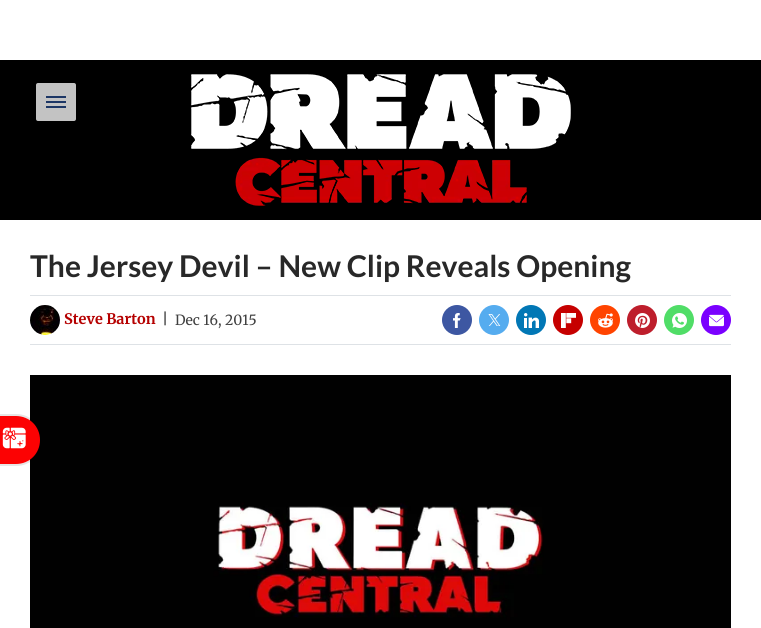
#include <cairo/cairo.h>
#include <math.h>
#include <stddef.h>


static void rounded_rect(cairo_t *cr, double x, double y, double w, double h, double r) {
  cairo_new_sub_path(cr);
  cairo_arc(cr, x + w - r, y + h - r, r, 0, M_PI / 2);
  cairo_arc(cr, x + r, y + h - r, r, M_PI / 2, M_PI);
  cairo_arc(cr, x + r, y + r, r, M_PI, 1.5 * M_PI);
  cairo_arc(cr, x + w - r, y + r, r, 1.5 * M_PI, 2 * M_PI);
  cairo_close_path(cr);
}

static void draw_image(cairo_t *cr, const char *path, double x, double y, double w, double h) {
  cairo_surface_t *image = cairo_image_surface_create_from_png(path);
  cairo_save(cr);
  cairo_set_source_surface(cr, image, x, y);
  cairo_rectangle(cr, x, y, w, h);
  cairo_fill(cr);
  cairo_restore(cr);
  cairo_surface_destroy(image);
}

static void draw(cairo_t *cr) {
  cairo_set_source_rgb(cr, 0, 0, 0);
  cairo_paint(cr);
  cairo_set_source_rgb(cr, 1, 1, 1);
  cairo_rectangle(cr, 0, 0, 761, 60);
  cairo_fill(cr);
  cairo_set_source_rgb(cr, 195 / 255.0, 195 / 255.0, 195 / 255.0);
  rounded_rect(cr, 36, 83, 40, 38, 2);
  cairo_fill(cr);
  cairo_set_source_rgb(cr, 28 / 255.0, 54 / 255.0, 101 / 255.0);
  cairo_rectangle(cr, 46, 96, 20, 2);
  cairo_fill(cr);
  cairo_rectangle(cr, 46, 101, 20, 2);
  cairo_fill(cr);
  cairo_rectangle(cr, 46, 106, 20, 2);
  cairo_fill(cr);
  draw_image(cr, "images/1.png", 191, 74, 380, 132);
  cairo_set_source_rgb(cr, 1, 1, 1);
  cairo_rectangle(cr, 0, 220, 761, 408);
  cairo_fill(cr);
  cairo_set_source_rgb(cr, 222 / 255.0, 226 / 255.0, 230 / 255.0);
  cairo_rectangle(cr, 30, 295, 701, 1);
  cairo_fill(cr);
  cairo_rectangle(cr, 30, 344, 701, 1);
  cairo_fill(cr);
  draw_image(cr, "images/2.png", 30, 305, 30, 30);
  cairo_set_source_rgb(cr, 61 / 255.0, 87 / 255.0, 162 / 255.0);
  cairo_arc(cr, 457, 320, 15, 0, 2 * M_PI);
  cairo_fill(cr);
  draw_image(cr, "images/3.png", 453, 313, 8, 15);
  cairo_set_source_rgb(cr, 85 / 255.0, 172 / 255.0, 239 / 255.0);
  cairo_arc(cr, 494, 320, 15, 0, 2 * M_PI);
  cairo_fill(cr);
  draw_image(cr, "images/4.png", 488, 314, 13, 12);
  cairo_set_source_rgb(cr, 1 / 255.0, 119 / 255.0, 181 / 255.0);
  cairo_arc(cr, 531, 320, 15, 0, 2 * M_PI);
  cairo_fill(cr);
  draw_image(cr, "images/5.png", 524, 313, 15, 15);
  cairo_set_source_rgb(cr, 198 / 255.0, 0, 0);
  cairo_arc(cr, 568, 320, 15, 0, 2 * M_PI);
  cairo_fill(cr);
  draw_image(cr, "images/6.png", 561, 313, 15, 15);
  cairo_set_source_rgb(cr, 1, 68 / 255.0, 0);
  cairo_arc(cr, 605, 320, 15, 0, 2 * M_PI);
  cairo_fill(cr);
  draw_image(cr, "images/7.png", 598, 313, 15, 15);
  cairo_set_source_rgb(cr, 190 / 255.0, 30 / 255.0, 44 / 255.0);
  cairo_arc(cr, 642, 320, 15, 0, 2 * M_PI);
  cairo_fill(cr);
  draw_image(cr, "images/8.png", 635, 313, 15, 15);
  cairo_set_source_rgb(cr, 80 / 255.0, 221 / 255.0, 103 / 255.0);
  cairo_arc(cr, 679, 320, 15, 0, 2 * M_PI);
  cairo_fill(cr);
  draw_image(cr, "images/9.png", 672, 313, 15, 15);
  cairo_set_source_rgb(cr, 122 / 255.0, 0, 1);
  cairo_arc(cr, 716, 320, 15, 0, 2 * M_PI);
  cairo_fill(cr);
  draw_image(cr, "images/10.png", 709, 314, 15, 13);
  draw_image(cr, "images/11.png", 30, 375, 701, 253);
  cairo_new_path(cr);
  cairo_move_to(cr, -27, 415);
  cairo_line_to(cr, 16, 415);
  cairo_curve_to(cr, 30, 415, 41, 426, 41, 440);
  cairo_curve_to(cr, 41, 454, 30, 465, 16, 465);
  cairo_line_to(cr, -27, 465);
  cairo_close_path(cr);
  cairo_set_source_rgba(cr, 0, 0, 0, 0.1);
  cairo_stroke(cr);
  cairo_set_source_rgb(cr, 252 / 255.0, 2 / 255.0, 3 / 255.0);
  cairo_new_path(cr);
  cairo_move_to(cr, -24, 416);
  cairo_line_to(cr, 16, 416);
  cairo_curve_to(cr, 29.5, 416, 40, 426.5, 40, 440);
  cairo_curve_to(cr, 40, 453.5, 29.5, 464, 16, 464);
  cairo_line_to(cr, -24, 464);
  cairo_close_path(cr);
  cairo_fill(cr);
  draw_image(cr, "images/12.png", 2, 427, 24, 22);
  cairo_select_font_face(cr, "Lato", CAIRO_FONT_SLANT_NORMAL, CAIRO_FONT_WEIGHT_BOLD);
  cairo_set_font_size(cr, 30);
  cairo_set_source_rgb(cr, 40 / 255.0, 40 / 255.0, 40 / 255.0);
  cairo_move_to(cr, 30, 277);
  cairo_show_text(cr, "The Jersey Devil – New Clip Reveals Opening");
  cairo_select_font_face(cr, "Merriweather Light", CAIRO_FONT_SLANT_NORMAL, CAIRO_FONT_WEIGHT_NORMAL);
  cairo_set_font_size(cr, 14.5);
  cairo_set_source_rgb(cr, 181 / 255.0, 0, 0);
  cairo_move_to(cr, 64, 324);
  cairo_show_text(cr, "Steve Barton");
  cairo_select_font_face(cr, "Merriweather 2 Light", CAIRO_FONT_SLANT_NORMAL, CAIRO_FONT_WEIGHT_NORMAL);
  cairo_set_source_rgb(cr, 40 / 255.0, 40 / 255.0, 40 / 255.0);
  cairo_move_to(cr, 162, 324);
  cairo_show_text(cr, "|");
  cairo_set_font_size(cr, 14);
  cairo_set_source_rgb(cr, 64 / 255.0, 64 / 255.0, 64 / 255.0);
  cairo_move_to(cr, 175, 325);
  cairo_show_text(cr, "Dec 16, 2015");
}

int main(void) {
  cairo_surface_t *surface = cairo_image_surface_create(CAIRO_FORMAT_RGB24, 761, 628);
  cairo_t *cr = cairo_create(surface);
  cairo_font_options_t *options = cairo_font_options_create();
  cairo_font_options_set_hint_metrics(options, CAIRO_HINT_METRICS_OFF);
  cairo_font_options_set_hint_style(options, CAIRO_HINT_STYLE_NONE);
  cairo_set_font_options(cr, options);
  cairo_set_miter_limit(cr, 4);
  draw(cr);
  cairo_surface_write_to_png(surface, "out.png");
  cairo_font_options_destroy(options);
  cairo_destroy(cr);
  cairo_surface_destroy(surface);
  return 0;
}
